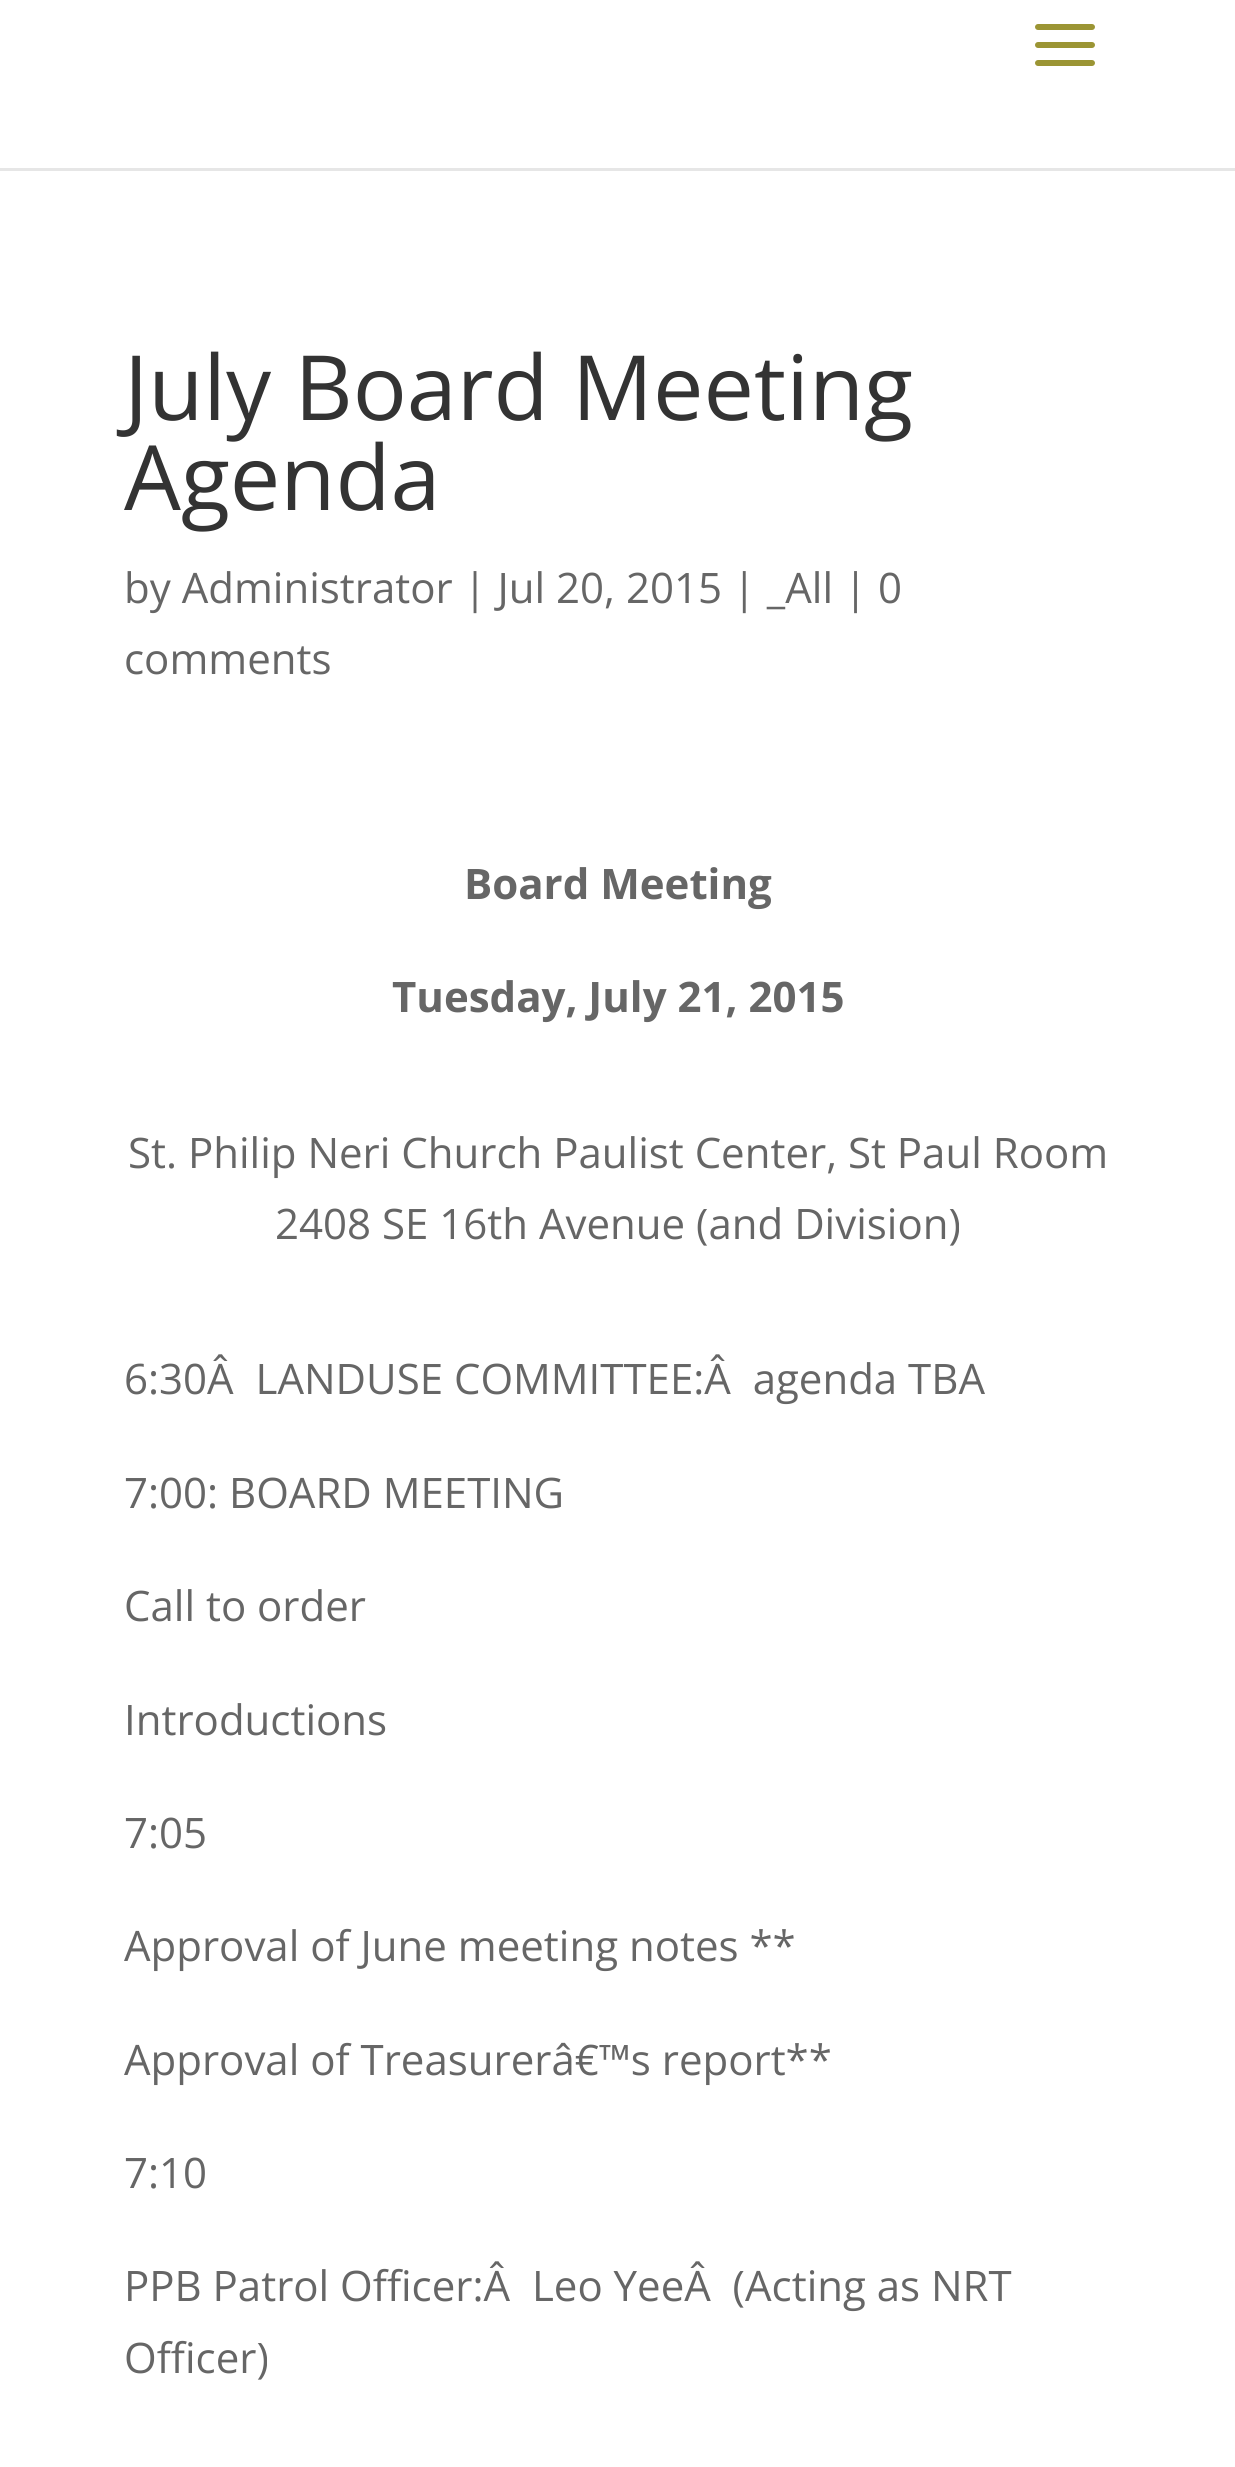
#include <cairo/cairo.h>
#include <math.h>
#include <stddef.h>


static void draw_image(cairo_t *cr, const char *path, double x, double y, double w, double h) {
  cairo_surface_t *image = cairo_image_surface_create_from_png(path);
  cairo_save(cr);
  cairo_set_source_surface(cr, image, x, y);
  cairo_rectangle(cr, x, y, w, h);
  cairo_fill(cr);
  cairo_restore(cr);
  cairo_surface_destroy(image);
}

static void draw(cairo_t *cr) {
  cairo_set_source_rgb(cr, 1, 1, 1);
  cairo_paint(cr);
  cairo_set_source_rgb(cr, 230 / 255.0, 230 / 255.0, 230 / 255.0);
  cairo_rectangle(cr, 0, 168, 1235, 3);
  cairo_fill(cr);
  draw_image(cr, "images/1.png", 1035, 24, 60, 42);
  cairo_select_font_face(cr, "Open Sans", CAIRO_FONT_SLANT_NORMAL, CAIRO_FONT_WEIGHT_NORMAL);
  cairo_set_font_size(cr, 90);
  cairo_set_source_rgb(cr, 51 / 255.0, 51 / 255.0, 51 / 255.0);
  cairo_move_to(cr, 124, 420);
  cairo_show_text(cr, "July Board Meeting");
  cairo_move_to(cr, 124, 510);
  cairo_show_text(cr, "Agenda");
  cairo_set_font_size(cr, 42);
  cairo_set_source_rgb(cr, 102 / 255.0, 102 / 255.0, 102 / 255.0);
  cairo_move_to(cr, 124, 603);
  cairo_show_text(cr, "by Administrator | Jul 20, 2015 | _All | 0");
  cairo_move_to(cr, 124, 674);
  cairo_show_text(cr, "comments");
  cairo_select_font_face(cr, "Open Sans", CAIRO_FONT_SLANT_NORMAL, CAIRO_FONT_WEIGHT_BOLD);
  cairo_move_to(cr, 464, 899);
  cairo_show_text(cr, "Board Meeting");
  cairo_move_to(cr, 392, 1012);
  cairo_show_text(cr, "Tuesday, July 21, 2015");
  cairo_select_font_face(cr, "Open Sans", CAIRO_FONT_SLANT_NORMAL, CAIRO_FONT_WEIGHT_NORMAL);
  cairo_move_to(cr, 128, 1168);
  cairo_show_text(cr, "St. Philip Neri Church Paulist Center, St Paul Room");
  cairo_move_to(cr, 275, 1239);
  cairo_show_text(cr, "2408 SE 16th Avenue (and Division)");
  cairo_move_to(cr, 124, 1394);
  cairo_show_text(cr, "6:30Â  LANDUSE COMMITTEE:Â  agenda TBA");
  cairo_move_to(cr, 124, 1508);
  cairo_show_text(cr, "7:00: BOARD MEETING");
  cairo_move_to(cr, 124, 1621);
  cairo_show_text(cr, "Call to order");
  cairo_move_to(cr, 124, 1735);
  cairo_show_text(cr, "Introductions");
  cairo_move_to(cr, 124, 1848);
  cairo_show_text(cr, "7:05");
  cairo_move_to(cr, 124, 1961);
  cairo_show_text(cr, "Approval of June meeting notes **");
  cairo_move_to(cr, 124, 2075);
  cairo_show_text(cr, "Approval of Treasurerâ€™s report**");
  cairo_move_to(cr, 124, 2188);
  cairo_show_text(cr, "7:10");
  cairo_move_to(cr, 124, 2301);
  cairo_show_text(cr, "PPB Patrol Officer:Â  Leo YeeÂ  (Acting as NRT");
  cairo_move_to(cr, 124, 2373);
  cairo_show_text(cr, "Officer)");
}

int main(void) {
  cairo_surface_t *surface = cairo_image_surface_create(CAIRO_FORMAT_RGB24, 1235, 2467);
  cairo_t *cr = cairo_create(surface);
  cairo_font_options_t *options = cairo_font_options_create();
  cairo_font_options_set_hint_metrics(options, CAIRO_HINT_METRICS_OFF);
  cairo_font_options_set_hint_style(options, CAIRO_HINT_STYLE_NONE);
  cairo_set_font_options(cr, options);
  cairo_set_miter_limit(cr, 4);
  draw(cr);
  cairo_surface_write_to_png(surface, "out.png");
  cairo_font_options_destroy(options);
  cairo_destroy(cr);
  cairo_surface_destroy(surface);
  return 0;
}
